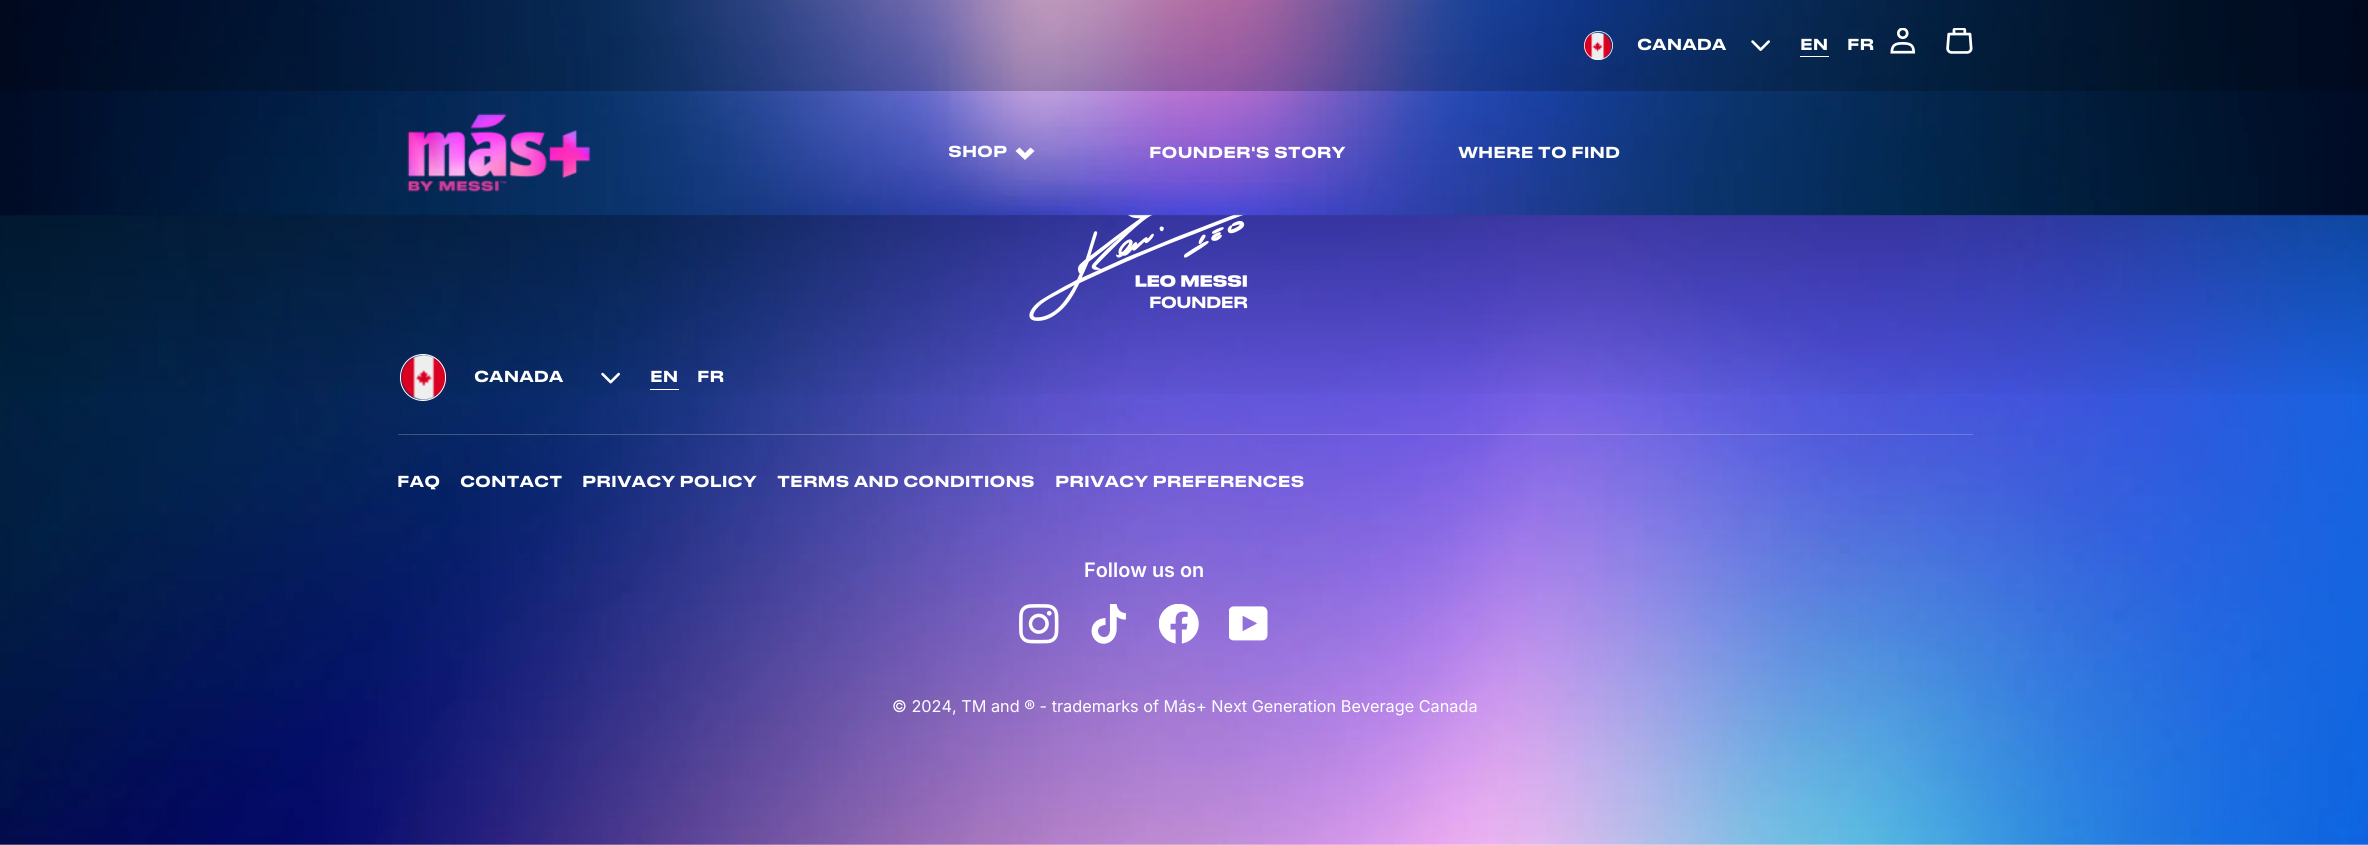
#include <cairo/cairo.h>
#include <math.h>
#include <stddef.h>


static void rounded_rect(cairo_t *cr, double x, double y, double w, double h, double r) {
  cairo_new_sub_path(cr);
  cairo_arc(cr, x + w - r, y + h - r, r, 0, M_PI / 2);
  cairo_arc(cr, x + r, y + h - r, r, M_PI / 2, M_PI);
  cairo_arc(cr, x + r, y + r, r, M_PI, 1.5 * M_PI);
  cairo_arc(cr, x + w - r, y + r, r, 1.5 * M_PI, 2 * M_PI);
  cairo_close_path(cr);
}

static void draw_image(cairo_t *cr, const char *path, double x, double y, double w, double h) {
  cairo_surface_t *image = cairo_image_surface_create_from_png(path);
  cairo_save(cr);
  cairo_set_source_surface(cr, image, x, y);
  cairo_rectangle(cr, x, y, w, h);
  cairo_fill(cr);
  cairo_restore(cr);
  cairo_surface_destroy(image);
}

static void draw(cairo_t *cr) {
  cairo_pattern_t *gradient;
  cairo_set_source_rgb(cr, 1, 1, 1);
  cairo_paint(cr);
  draw_image(cr, "images/7.png", 0, 213, 2368, 632);
  gradient = cairo_pattern_create_linear(1184, 845, 1184, -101);
  cairo_pattern_add_color_stop_rgba(gradient, 0.46, 0, 0, 0, 0);
  cairo_pattern_add_color_stop_rgba(gradient, 1, 0, 0, 0, 0.7);
  cairo_set_source(cr, gradient);
  cairo_pattern_destroy(gradient);
  cairo_rectangle(cr, 0, 213, 2368, 181);
  cairo_fill(cr);
  draw_image(cr, "images/8.png", 1029, 213, 220, 108);
  draw_image(cr, "images/1.png", 0, 0, 2368, 216);
  cairo_set_source_rgba(cr, 0, 0, 0, 0.2);
  cairo_rectangle(cr, 0, 0, 2368, 91);
  cairo_fill(cr);
  draw_image(cr, "images/2.png", 1583, 32, 29, 28);
  cairo_arc(cr, 1598.5, 45.5, 14.1, 0, 2 * M_PI);
  cairo_set_source_rgb(cr, 1, 1, 1);
  cairo_set_line_width(cr, 0.8);
  cairo_stroke(cr);
  draw_image(cr, "images/3.png", 1751, 40, 19, 11);
  cairo_rectangle(cr, 1800, 56, 29, 1);
  cairo_fill(cr);
  draw_image(cr, "images/4.png", 1890, 28, 26, 26);
  draw_image(cr, "images/5.png", 1946, 28, 27, 26);
  draw_image(cr, "images/6.png", 407, 113, 184, 79);
  cairo_set_fill_rule(cr, CAIRO_FILL_RULE_EVEN_ODD);
  cairo_new_path(cr);
  cairo_move_to(cr, 1015.5, 151);
  cairo_line_to(cr, 1019.5, 147.5);
  cairo_line_to(cr, 1025, 153);
  cairo_line_to(cr, 1030.5, 147.5);
  cairo_line_to(cr, 1034.5, 151);
  cairo_line_to(cr, 1025, 160);
  cairo_close_path(cr);
  cairo_fill(cr);
  draw_image(cr, "images/9.png", 401, 354, 46, 46);
  rounded_rect(cr, 400.5, 354.5, 45, 46, 22.5);
  cairo_set_line_width(cr, 1);
  cairo_stroke(cr);
  draw_image(cr, "images/10.png", 601, 372, 19, 12);
  cairo_rectangle(cr, 650, 389, 29, 1);
  cairo_fill(cr);
  cairo_set_source_rgba(cr, 232 / 255.0, 232 / 255.0, 225 / 255.0, 0.25);
  cairo_rectangle(cr, 398, 434, 1575, 1);
  cairo_fill(cr);
  draw_image(cr, "images/11.png", 1019, 604, 40, 40);
  draw_image(cr, "images/12.png", 1091, 604, 35, 40);
  draw_image(cr, "images/13.png", 1159, 604, 40, 40);
  draw_image(cr, "images/14.png", 1229, 606, 39, 35);
  cairo_select_font_face(cr, "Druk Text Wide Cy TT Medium", CAIRO_FONT_SLANT_NORMAL, CAIRO_FONT_WEIGHT_NORMAL);
  cairo_set_font_size(cr, 15);
  cairo_set_source_rgb(cr, 1, 1, 1);
  cairo_move_to(cr, 1637, 50);
  cairo_show_text(cr, "CANADA");
  cairo_move_to(cr, 1800, 50);
  cairo_show_text(cr, "EN");
  cairo_move_to(cr, 1847, 50);
  cairo_show_text(cr, "FR");
  cairo_move_to(cr, 948, 157);
  cairo_show_text(cr, "SHOP");
  cairo_move_to(cr, 1149, 158);
  cairo_show_text(cr, "FOUNDER'S STORY");
  cairo_move_to(cr, 1458, 158);
  cairo_show_text(cr, "WHERE TO FIND");
  cairo_move_to(cr, 474, 382);
  cairo_show_text(cr, "CANADA");
  cairo_move_to(cr, 650, 382);
  cairo_show_text(cr, "EN");
  cairo_move_to(cr, 697, 382);
  cairo_show_text(cr, "FR");
  cairo_move_to(cr, 397, 487);
  cairo_show_text(cr, "FAQ");
  cairo_move_to(cr, 460, 487);
  cairo_show_text(cr, "CONTACT");
  cairo_move_to(cr, 582, 487);
  cairo_show_text(cr, "PRIVACY POLICY");
  cairo_move_to(cr, 777, 487);
  cairo_show_text(cr, "TERMS AND CONDITIONS");
  cairo_move_to(cr, 1055, 487);
  cairo_show_text(cr, "PRIVACY PREFERENCES");
  cairo_select_font_face(cr, "Inter SemiBold", CAIRO_FONT_SLANT_NORMAL, CAIRO_FONT_WEIGHT_NORMAL);
  cairo_set_font_size(cr, 20);
  cairo_move_to(cr, 1084, 577);
  cairo_show_text(cr, "Follow us on");
  cairo_select_font_face(cr, "Inter", CAIRO_FONT_SLANT_NORMAL, CAIRO_FONT_WEIGHT_NORMAL);
  cairo_set_font_size(cr, 16.25);
  cairo_move_to(cr, 892, 712);
  cairo_show_text(cr, "© 2024, TM and ® - trademarks of Más+ Next Generation Beverage Canada");
}

int main(void) {
  cairo_surface_t *surface = cairo_image_surface_create(CAIRO_FORMAT_RGB24, 2368, 845);
  cairo_t *cr = cairo_create(surface);
  cairo_font_options_t *options = cairo_font_options_create();
  cairo_font_options_set_hint_metrics(options, CAIRO_HINT_METRICS_OFF);
  cairo_font_options_set_hint_style(options, CAIRO_HINT_STYLE_NONE);
  cairo_set_font_options(cr, options);
  cairo_set_miter_limit(cr, 4);
  draw(cr);
  cairo_surface_write_to_png(surface, "out.png");
  cairo_font_options_destroy(options);
  cairo_destroy(cr);
  cairo_surface_destroy(surface);
  return 0;
}
